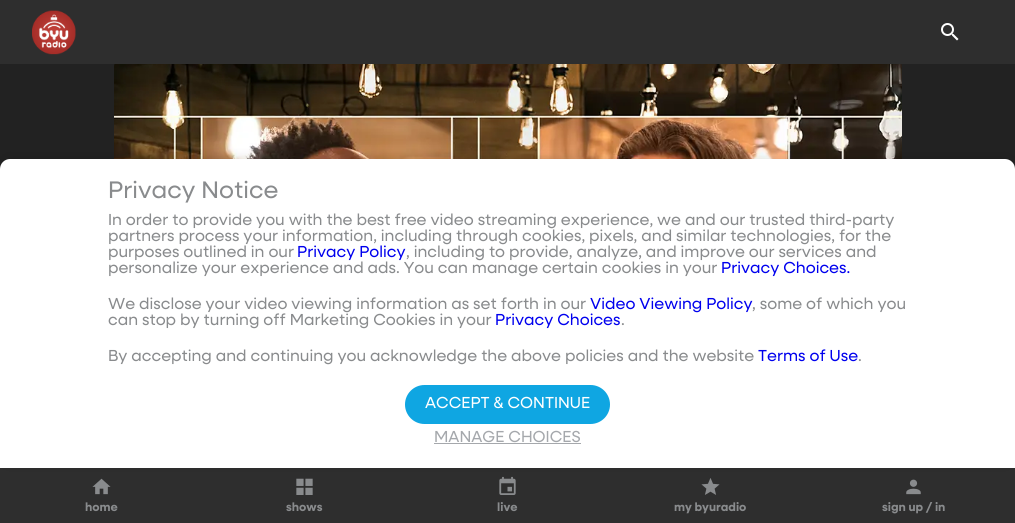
#include <cairo/cairo.h>
#include <math.h>
#include <stddef.h>


static void rounded_rect(cairo_t *cr, double x, double y, double w, double h, double r) {
  cairo_new_sub_path(cr);
  cairo_arc(cr, x + w - r, y + h - r, r, 0, M_PI / 2);
  cairo_arc(cr, x + r, y + h - r, r, M_PI / 2, M_PI);
  cairo_arc(cr, x + r, y + r, r, M_PI, 1.5 * M_PI);
  cairo_arc(cr, x + w - r, y + r, r, 1.5 * M_PI, 2 * M_PI);
  cairo_close_path(cr);
}

static void draw_shadow(cairo_t *cr, double x, double y, double w, double h, double r, double blur, double alpha) {
  cairo_push_group_with_content(cr, CAIRO_CONTENT_ALPHA);
  cairo_set_operator(cr, CAIRO_OPERATOR_SOURCE);
  for (int i = 15; i >= -15 && fmin(w, h) + blur * i / 3 > 0; i -= 2) {
    double e = blur * i / 6;
    cairo_set_source_rgba(cr, 0, 0, 0, alpha * erfc((i - 1) / 8.5) / 2);
    rounded_rect(cr, x - e, y - e, w + 2 * e, h + 2 * e, fmax(0, fmin(r + e + blur * .6, fmin(w, h) / 2 + e)));
    cairo_fill(cr);
  }
  cairo_pattern_t *soft = cairo_pop_group(cr);
  cairo_mask(cr, soft);
  cairo_pattern_destroy(soft);
}

static void draw_image(cairo_t *cr, const char *path, double x, double y, double w, double h) {
  cairo_surface_t *image = cairo_image_surface_create_from_png(path);
  cairo_save(cr);
  cairo_set_source_surface(cr, image, x, y);
  cairo_rectangle(cr, x, y, w, h);
  cairo_fill(cr);
  cairo_restore(cr);
  cairo_surface_destroy(image);
}

static void draw(cairo_t *cr) {
  cairo_set_source_rgb(cr, 34 / 255.0, 34 / 255.0, 34 / 255.0);
  cairo_paint(cr);
  cairo_set_source_rgb(cr, 46 / 255.0, 46 / 255.0, 46 / 255.0);
  cairo_rectangle(cr, 0, 0, 1015, 64);
  cairo_fill(cr);
  draw_image(cr, "images/1.png", 32, 10, 44, 45);
  draw_image(cr, "images/2.png", 941, 23, 18, 18);
  draw_image(cr, "images/3.png", 114, 64, 788, 95);
  cairo_rectangle(cr, 0, 468, 1015, 55);
  cairo_fill(cr);
  draw_image(cr, "images/4.png", 92, 478, 19, 17);
  draw_image(cr, "images/5.png", 296, 478, 17, 17);
  draw_image(cr, "images/6.png", 499, 476, 17, 19);
  draw_image(cr, "images/7.png", 701, 478, 19, 17);
  draw_image(cr, "images/8.png", 906, 479, 15, 16);
  cairo_set_source_rgb(cr, 0, 0, 0);
  draw_shadow(cr, 0, 157, 1015, 309, 10, 5, 0.1);
  cairo_set_source_rgb(cr, 1, 1, 1);
  cairo_new_path(cr);
  cairo_move_to(cr, 10, 159);
  cairo_line_to(cr, 1005, 159);
  cairo_curve_to(cr, 1010.5, 159, 1015, 163.5, 1015, 169);
  cairo_line_to(cr, 1015, 468);
  cairo_line_to(cr, 0, 468);
  cairo_line_to(cr, 0, 169);
  cairo_curve_to(cr, 0, 163.5, 4.5, 159, 10, 159);
  cairo_close_path(cr);
  cairo_fill(cr);
  cairo_set_source_rgb(cr, 15 / 255.0, 166 / 255.0, 226 / 255.0);
  rounded_rect(cr, 405, 385, 205, 39, 19.5);
  cairo_fill(cr);
  cairo_set_source_rgb(cr, 165 / 255.0, 168 / 255.0, 172 / 255.0);
  cairo_rectangle(cr, 434, 443, 147, 1);
  cairo_fill(cr);
  cairo_select_font_face(cr, "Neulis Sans", CAIRO_FONT_SLANT_NORMAL, CAIRO_FONT_WEIGHT_NORMAL);
  cairo_set_font_size(cr, 24);
  cairo_set_source_rgb(cr, 137 / 255.0, 139 / 255.0, 141 / 255.0);
  cairo_move_to(cr, 108, 198);
  cairo_show_text(cr, "Privacy Notice");
  cairo_set_font_size(cr, 16);
  cairo_move_to(cr, 108, 225);
  cairo_show_text(cr, "In order to provide you with the best free video streaming experience, we and our trusted third-party");
  cairo_move_to(cr, 108, 241);
  cairo_show_text(cr, "partners process your information, including through cookies, pixels, and similar technologies, for the");
  cairo_move_to(cr, 108, 257);
  cairo_show_text(cr, "purposes outlined in our");
  cairo_set_source_rgb(cr, 0, 0, 238 / 255.0);
  cairo_move_to(cr, 297, 257);
  cairo_show_text(cr, "Privacy Policy");
  cairo_set_source_rgb(cr, 137 / 255.0, 139 / 255.0, 141 / 255.0);
  cairo_move_to(cr, 406, 257);
  cairo_show_text(cr, ", including to provide, analyze, and improve our services and");
  cairo_move_to(cr, 108, 273);
  cairo_show_text(cr, "personalize your experience and ads. You can manage certain cookies in your");
  cairo_set_source_rgb(cr, 0, 0, 238 / 255.0);
  cairo_move_to(cr, 721, 273);
  cairo_show_text(cr, "Privacy Choices.");
  cairo_set_source_rgb(cr, 137 / 255.0, 139 / 255.0, 141 / 255.0);
  cairo_move_to(cr, 108, 309);
  cairo_show_text(cr, "We disclose your video viewing information as set forth in our");
  cairo_set_source_rgb(cr, 0, 0, 238 / 255.0);
  cairo_move_to(cr, 590, 309);
  cairo_show_text(cr, "Video Viewing Policy");
  cairo_set_source_rgb(cr, 137 / 255.0, 139 / 255.0, 141 / 255.0);
  cairo_move_to(cr, 752, 309);
  cairo_show_text(cr, ", some of which you");
  cairo_move_to(cr, 108, 325);
  cairo_show_text(cr, "can stop by turning off Marketing Cookies in your");
  cairo_set_source_rgb(cr, 0, 0, 238 / 255.0);
  cairo_move_to(cr, 495, 325);
  cairo_show_text(cr, "Privacy Choices");
  cairo_set_source_rgb(cr, 137 / 255.0, 139 / 255.0, 141 / 255.0);
  cairo_move_to(cr, 621, 325);
  cairo_show_text(cr, ".");
  cairo_move_to(cr, 108, 361);
  cairo_show_text(cr, "By accepting and continuing you acknowledge the above policies and the website");
  cairo_set_source_rgb(cr, 0, 0, 238 / 255.0);
  cairo_move_to(cr, 758, 361);
  cairo_show_text(cr, "Terms of Use");
  cairo_set_source_rgb(cr, 137 / 255.0, 139 / 255.0, 141 / 255.0);
  cairo_move_to(cr, 858, 361);
  cairo_show_text(cr, ".");
  cairo_set_source_rgb(cr, 1, 1, 1);
  cairo_move_to(cr, 425, 408);
  cairo_show_text(cr, "ACCEPT & CONTINUE");
  cairo_set_source_rgb(cr, 165 / 255.0, 168 / 255.0, 172 / 255.0);
  cairo_move_to(cr, 434, 442);
  cairo_show_text(cr, "MANAGE CHOICES");
  cairo_select_font_face(cr, "Neulis Sans", CAIRO_FONT_SLANT_NORMAL, CAIRO_FONT_WEIGHT_BOLD);
  cairo_set_font_size(cr, 12);
  cairo_set_source_rgb(cr, 137 / 255.0, 139 / 255.0, 141 / 255.0);
  cairo_move_to(cr, 85, 511);
  cairo_show_text(cr, "home");
  cairo_move_to(cr, 286, 511);
  cairo_show_text(cr, "shows");
  cairo_move_to(cr, 497, 511);
  cairo_show_text(cr, "live");
  cairo_move_to(cr, 674, 511);
  cairo_show_text(cr, "my byuradio");
  cairo_move_to(cr, 882, 511);
  cairo_show_text(cr, "sign up / in");
}

int main(void) {
  cairo_surface_t *surface = cairo_image_surface_create(CAIRO_FORMAT_RGB24, 1015, 523);
  cairo_t *cr = cairo_create(surface);
  cairo_font_options_t *options = cairo_font_options_create();
  cairo_font_options_set_hint_metrics(options, CAIRO_HINT_METRICS_OFF);
  cairo_font_options_set_hint_style(options, CAIRO_HINT_STYLE_NONE);
  cairo_set_font_options(cr, options);
  cairo_set_miter_limit(cr, 4);
  draw(cr);
  cairo_surface_write_to_png(surface, "out.png");
  cairo_font_options_destroy(options);
  cairo_destroy(cr);
  cairo_surface_destroy(surface);
  return 0;
}
